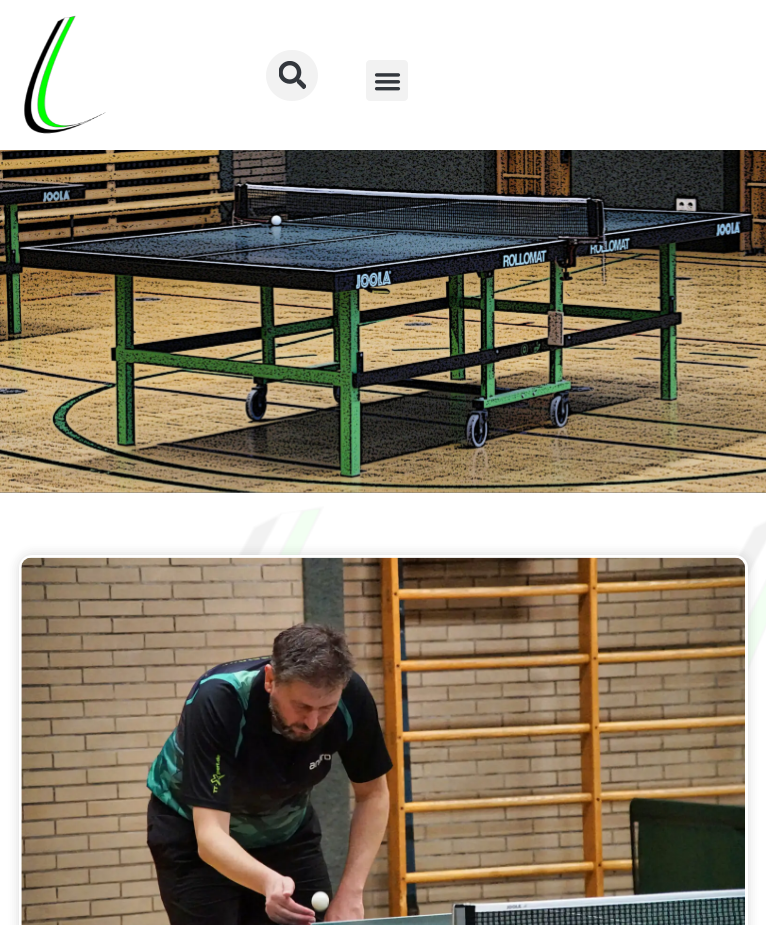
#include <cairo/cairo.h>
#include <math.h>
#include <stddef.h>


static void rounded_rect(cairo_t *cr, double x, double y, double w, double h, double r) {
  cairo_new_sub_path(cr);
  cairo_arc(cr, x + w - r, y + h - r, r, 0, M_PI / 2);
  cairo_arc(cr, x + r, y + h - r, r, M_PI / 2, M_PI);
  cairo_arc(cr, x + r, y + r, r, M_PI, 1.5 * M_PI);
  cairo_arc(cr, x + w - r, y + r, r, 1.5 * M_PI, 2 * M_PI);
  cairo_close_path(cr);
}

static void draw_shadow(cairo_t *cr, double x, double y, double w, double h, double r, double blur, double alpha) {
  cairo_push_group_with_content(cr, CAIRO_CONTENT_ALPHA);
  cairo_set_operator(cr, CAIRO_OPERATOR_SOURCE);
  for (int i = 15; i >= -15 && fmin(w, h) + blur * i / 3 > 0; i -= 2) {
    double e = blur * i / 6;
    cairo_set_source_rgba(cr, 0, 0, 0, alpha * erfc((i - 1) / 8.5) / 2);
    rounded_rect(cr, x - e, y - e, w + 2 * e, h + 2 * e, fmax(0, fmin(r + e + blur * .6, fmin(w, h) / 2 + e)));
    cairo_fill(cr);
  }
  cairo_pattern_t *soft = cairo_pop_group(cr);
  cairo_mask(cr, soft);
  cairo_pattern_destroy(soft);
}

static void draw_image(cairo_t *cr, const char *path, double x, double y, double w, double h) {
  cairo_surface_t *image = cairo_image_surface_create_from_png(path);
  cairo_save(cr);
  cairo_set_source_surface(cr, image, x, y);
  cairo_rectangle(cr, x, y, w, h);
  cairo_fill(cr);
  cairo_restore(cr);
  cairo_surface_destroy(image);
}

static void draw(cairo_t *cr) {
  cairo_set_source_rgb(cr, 1, 1, 1);
  cairo_paint(cr);
  draw_image(cr, "images/1.png", 24, 15, 82, 119);
  cairo_set_source_rgb(cr, 242 / 255.0, 242 / 255.0, 242 / 255.0);
  rounded_rect(cr, 266, 50, 52, 51, 25.5);
  cairo_fill(cr);
  draw_image(cr, "images/2.png", 279, 61, 27, 29);
  rounded_rect(cr, 366, 60, 42, 41, 4);
  cairo_fill(cr);
  draw_image(cr, "images/3.png", 374, 73, 27, 18);
  cairo_set_source_rgb(cr, 122 / 255.0, 122 / 255.0, 122 / 255.0);
  cairo_rectangle(cr, 0, 492, 766, 1);
  cairo_fill(cr);
  draw_image(cr, "images/4.png", 0, 150, 766, 343);
  draw_image(cr, "images/5.png", 120, 492, 646, 433);
  cairo_set_source_rgb(cr, 0, 0, 0);
  draw_shadow(cr, 19, 555, 729, 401, 13, 6, 0.15);
  rounded_rect(cr, 20.5, 556.5, 726, 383, 11.5);
  cairo_set_source_rgb(cr, 1, 1, 1);
  cairo_set_line_width(cr, 3);
  cairo_stroke(cr);
  draw_image(cr, "images/6.png", 21, 557, 724, 368);
}

int main(void) {
  cairo_surface_t *surface = cairo_image_surface_create(CAIRO_FORMAT_RGB24, 766, 925);
  cairo_t *cr = cairo_create(surface);
  cairo_font_options_t *options = cairo_font_options_create();
  cairo_font_options_set_hint_metrics(options, CAIRO_HINT_METRICS_OFF);
  cairo_font_options_set_hint_style(options, CAIRO_HINT_STYLE_NONE);
  cairo_set_font_options(cr, options);
  cairo_set_miter_limit(cr, 4);
  draw(cr);
  cairo_surface_write_to_png(surface, "out.png");
  cairo_font_options_destroy(options);
  cairo_destroy(cr);
  cairo_surface_destroy(surface);
  return 0;
}
